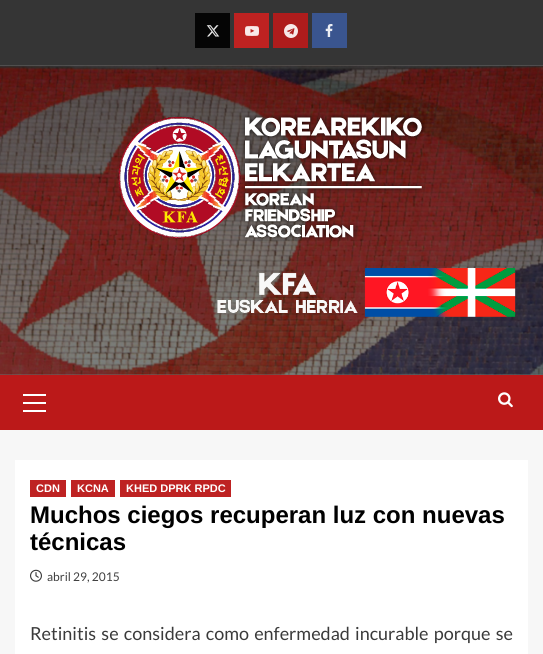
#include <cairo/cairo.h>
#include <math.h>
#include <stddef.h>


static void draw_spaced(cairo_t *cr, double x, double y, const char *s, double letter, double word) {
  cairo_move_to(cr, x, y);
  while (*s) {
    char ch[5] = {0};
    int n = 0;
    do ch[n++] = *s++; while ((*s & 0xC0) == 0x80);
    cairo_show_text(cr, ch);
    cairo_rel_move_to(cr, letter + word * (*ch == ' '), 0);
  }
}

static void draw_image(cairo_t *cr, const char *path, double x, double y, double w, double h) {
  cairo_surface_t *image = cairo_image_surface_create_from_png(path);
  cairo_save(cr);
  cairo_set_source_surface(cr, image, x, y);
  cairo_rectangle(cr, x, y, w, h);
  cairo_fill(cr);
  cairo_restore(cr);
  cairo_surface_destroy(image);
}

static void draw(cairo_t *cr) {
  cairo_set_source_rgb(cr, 247 / 255.0, 247 / 255.0, 247 / 255.0);
  cairo_paint(cr);
  cairo_set_source_rgb(cr, 53 / 255.0, 53 / 255.0, 53 / 255.0);
  cairo_rectangle(cr, 0, 0, 543, 65);
  cairo_fill(cr);
  cairo_set_source_rgb(cr, 5 / 255.0, 5 / 255.0, 5 / 255.0);
  cairo_rectangle(cr, 195, 13, 35, 35);
  cairo_fill(cr);
  draw_image(cr, "images/1.png", 206, 25, 14, 12);
  cairo_set_source_rgb(cr, 190 / 255.0, 34 / 255.0, 33 / 255.0);
  cairo_rectangle(cr, 234, 13, 35, 35);
  cairo_fill(cr);
  draw_image(cr, "images/2.png", 245, 26, 14, 10);
  cairo_set_source_rgb(cr, 174 / 255.0, 28 / 255.0, 28 / 255.0);
  cairo_rectangle(cr, 273, 13, 35, 35);
  cairo_fill(cr);
  draw_image(cr, "images/3.png", 284, 24, 14, 14);
  cairo_set_source_rgb(cr, 58 / 255.0, 85 / 255.0, 143 / 255.0);
  cairo_rectangle(cr, 312, 13, 35, 35);
  cairo_fill(cr);
  draw_image(cr, "images/4.png", 325, 24, 8, 13);
  draw_image(cr, "images/5.png", 0, 65, 543, 310);
  draw_image(cr, "images/6.png", 118, 114, 307, 127);
  draw_image(cr, "images/7.png", 217, 268, 299, 49);
  cairo_set_source_rgb(cr, 187 / 255.0, 25 / 255.0, 25 / 255.0);
  cairo_rectangle(cr, 0, 375, 543, 55);
  cairo_fill(cr);
  cairo_set_source_rgb(cr, 1, 1, 1);
  cairo_rectangle(cr, 23, 402, 23, 2);
  cairo_fill(cr);
  cairo_rectangle(cr, 23, 394, 23, 2);
  cairo_fill(cr);
  cairo_rectangle(cr, 23, 410, 23, 2);
  cairo_fill(cr);
  draw_image(cr, "images/8.png", 498, 392, 15, 16);
  cairo_rectangle(cr, 15, 460, 513, 194);
  cairo_fill(cr);
  cairo_set_source_rgb(cr, 190 / 255.0, 34 / 255.0, 34 / 255.0);
  cairo_rectangle(cr, 30, 480, 36, 17);
  cairo_fill(cr);
  cairo_rectangle(cr, 71, 480, 44, 17);
  cairo_fill(cr);
  cairo_rectangle(cr, 120, 480, 111, 17);
  cairo_fill(cr);
  draw_image(cr, "images/9.png", 30, 569, 12, 13);
  cairo_select_font_face(cr, "Liberation Sans", CAIRO_FONT_SLANT_NORMAL, CAIRO_FONT_WEIGHT_BOLD);
  cairo_set_font_size(cr, 11);
  cairo_set_source_rgb(cr, 1, 1, 1);
  cairo_move_to(cr, 36, 492);
  cairo_show_text(cr, "CDN");
  cairo_move_to(cr, 77, 492);
  cairo_show_text(cr, "KCNA");
  cairo_move_to(cr, 126, 492);
  cairo_show_text(cr, "KHED DPRK RPDC");
  cairo_set_font_size(cr, 24);
  cairo_set_source_rgb(cr, 0, 0, 0);
  cairo_move_to(cr, 30, 523);
  cairo_show_text(cr, "Muchos ciegos recuperan luz con nuevas");
  cairo_move_to(cr, 30, 550);
  cairo_show_text(cr, "técnicas");
  cairo_select_font_face(cr, "Lato", CAIRO_FONT_SLANT_NORMAL, CAIRO_FONT_WEIGHT_NORMAL);
  cairo_set_font_size(cr, 12);
  cairo_set_source_rgb(cr, 64 / 255.0, 64 / 255.0, 64 / 255.0);
  cairo_move_to(cr, 47, 581);
  cairo_show_text(cr, "abril 29, 2015");
  cairo_set_font_size(cr, 18);
  cairo_set_source_rgb(cr, 58 / 255.0, 58 / 255.0, 58 / 255.0);
  draw_spaced(cr, 30, 640, "Retinitis se considera como enfermedad incurable porque se", 0, 1.75);
}

int main(void) {
  cairo_surface_t *surface = cairo_image_surface_create(CAIRO_FORMAT_RGB24, 543, 654);
  cairo_t *cr = cairo_create(surface);
  cairo_font_options_t *options = cairo_font_options_create();
  cairo_font_options_set_hint_metrics(options, CAIRO_HINT_METRICS_OFF);
  cairo_font_options_set_hint_style(options, CAIRO_HINT_STYLE_NONE);
  cairo_set_font_options(cr, options);
  cairo_set_miter_limit(cr, 4);
  draw(cr);
  cairo_surface_write_to_png(surface, "out.png");
  cairo_font_options_destroy(options);
  cairo_destroy(cr);
  cairo_surface_destroy(surface);
  return 0;
}
